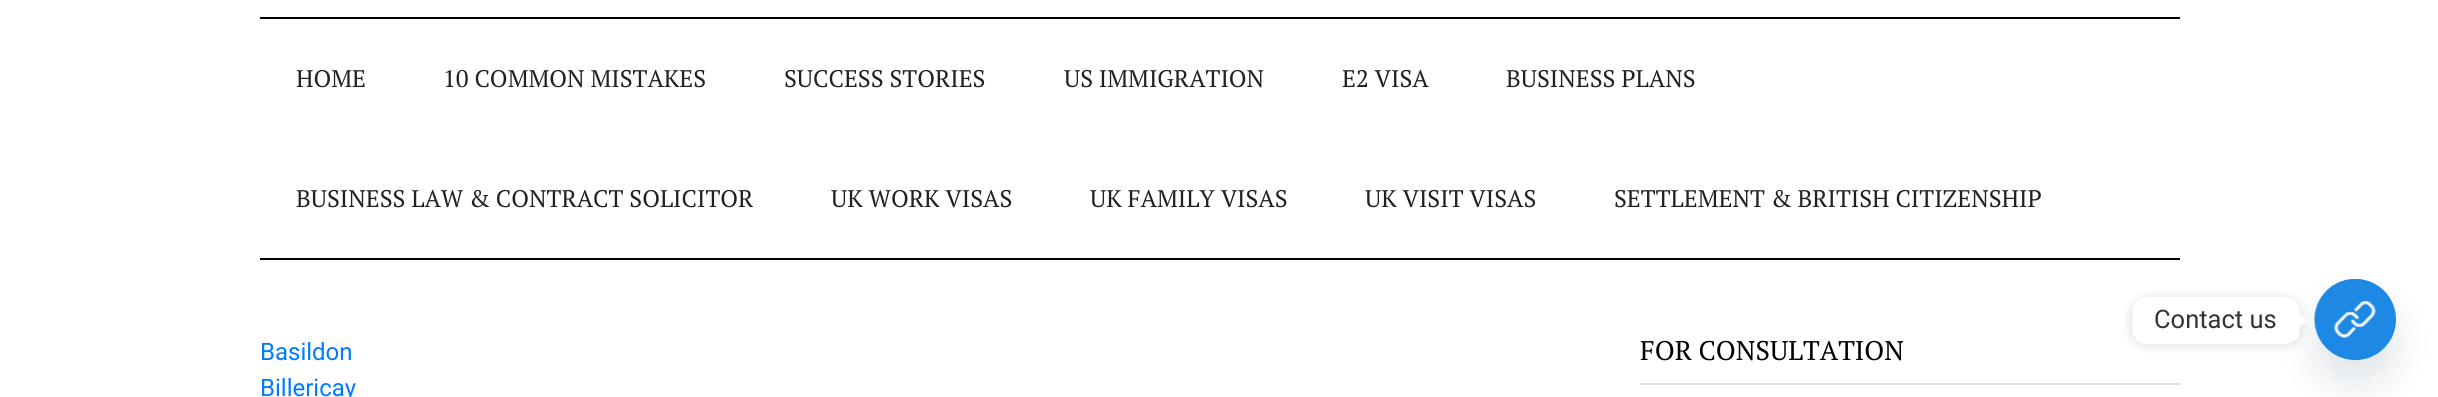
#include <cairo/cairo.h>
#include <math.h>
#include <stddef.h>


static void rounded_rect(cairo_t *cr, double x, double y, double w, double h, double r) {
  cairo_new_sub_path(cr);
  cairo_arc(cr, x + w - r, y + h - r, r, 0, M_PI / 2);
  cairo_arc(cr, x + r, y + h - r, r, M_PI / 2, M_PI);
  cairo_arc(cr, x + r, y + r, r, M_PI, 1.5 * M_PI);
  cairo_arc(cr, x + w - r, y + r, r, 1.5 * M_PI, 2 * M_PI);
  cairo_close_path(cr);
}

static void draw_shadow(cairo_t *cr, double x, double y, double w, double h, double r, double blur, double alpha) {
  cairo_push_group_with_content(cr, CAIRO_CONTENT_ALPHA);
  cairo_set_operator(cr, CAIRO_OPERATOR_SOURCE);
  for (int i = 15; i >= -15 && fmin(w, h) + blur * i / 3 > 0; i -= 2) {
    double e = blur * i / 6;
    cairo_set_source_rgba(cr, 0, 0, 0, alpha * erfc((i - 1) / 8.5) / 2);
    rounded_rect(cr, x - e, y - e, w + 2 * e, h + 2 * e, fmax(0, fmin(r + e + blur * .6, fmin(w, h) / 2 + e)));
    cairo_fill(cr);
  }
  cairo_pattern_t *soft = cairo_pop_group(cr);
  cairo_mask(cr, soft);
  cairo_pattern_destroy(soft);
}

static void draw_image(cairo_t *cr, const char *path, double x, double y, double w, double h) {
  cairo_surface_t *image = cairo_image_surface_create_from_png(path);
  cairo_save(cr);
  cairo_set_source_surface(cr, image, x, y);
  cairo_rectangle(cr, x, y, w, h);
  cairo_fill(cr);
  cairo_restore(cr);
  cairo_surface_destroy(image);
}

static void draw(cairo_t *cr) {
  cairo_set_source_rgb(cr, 1, 1, 1);
  cairo_paint(cr);
  cairo_set_source_rgb(cr, 0, 0, 0);
  cairo_rectangle(cr, 260, 17, 1920, 2);
  cairo_fill(cr);
  cairo_rectangle(cr, 260, 258, 1920, 2);
  cairo_fill(cr);
  cairo_set_source_rgb(cr, 221 / 255.0, 221 / 255.0, 221 / 255.0);
  cairo_rectangle(cr, 1640, 383, 540, 2);
  cairo_fill(cr);
  cairo_set_source_rgb(cr, 73 / 255.0, 104 / 255.0, 126 / 255.0);
  draw_shadow(cr, 2315, 303, 81, 81, 40.5, 18, 0.16);
  cairo_set_source_rgb(cr, 30 / 255.0, 136 / 255.0, 229 / 255.0);
  cairo_arc(cr, 2355.5, 319.5, 40.5, 0, 2 * M_PI);
  cairo_fill(cr);
  draw_image(cr, "images/1.png", 2314, 279, 82, 81);
  cairo_set_source_rgb(cr, 0, 0, 0);
  draw_shadow(cr, 2132, 299, 168, 46, 15, 6, 0.15);
  cairo_set_source_rgb(cr, 1, 1, 1);
  rounded_rect(cr, 2132, 297, 168, 47, 15);
  cairo_fill(cr);
  cairo_new_path(cr);
  cairo_move_to(cr, 2299.5, 328);
  cairo_line_to(cr, 2299.5, 313);
  cairo_line_to(cr, 2307, 320);
  cairo_close_path(cr);
  cairo_fill(cr);
  cairo_select_font_face(cr, "PT Serif", CAIRO_FONT_SLANT_NORMAL, CAIRO_FONT_WEIGHT_NORMAL);
  cairo_set_font_size(cr, 24);
  cairo_set_source_rgb(cr, 33 / 255.0, 33 / 255.0, 33 / 255.0);
  cairo_move_to(cr, 296, 87);
  cairo_show_text(cr, "HOME");
  cairo_move_to(cr, 443, 87);
  cairo_show_text(cr, "10 COMMON MISTAKES");
  cairo_move_to(cr, 784, 87);
  cairo_show_text(cr, "SUCCESS STORIES");
  cairo_move_to(cr, 1064, 87);
  cairo_show_text(cr, "US IMMIGRATION");
  cairo_move_to(cr, 1342, 87);
  cairo_show_text(cr, "E2 VISA");
  cairo_move_to(cr, 1506, 87);
  cairo_show_text(cr, "BUSINESS PLANS");
  cairo_move_to(cr, 296, 207);
  cairo_show_text(cr, "BUSINESS LAW & CONTRACT SOLICITOR");
  cairo_move_to(cr, 831, 207);
  cairo_show_text(cr, "UK WORK VISAS");
  cairo_move_to(cr, 1090, 207);
  cairo_show_text(cr, "UK FAMILY VISAS");
  cairo_move_to(cr, 1365, 207);
  cairo_show_text(cr, "UK VISIT VISAS");
  cairo_move_to(cr, 1614, 207);
  cairo_show_text(cr, "SETTLEMENT & BRITISH CITIZENSHIP");
  cairo_select_font_face(cr, "Roboto", CAIRO_FONT_SLANT_NORMAL, CAIRO_FONT_WEIGHT_NORMAL);
  cairo_set_source_rgb(cr, 0, 123 / 255.0, 1);
  cairo_move_to(cr, 260, 360);
  cairo_show_text(cr, "Basildon");
  cairo_move_to(cr, 260, 396);
  cairo_show_text(cr, "Billericay");
  cairo_select_font_face(cr, "PT Serif", CAIRO_FONT_SLANT_NORMAL, CAIRO_FONT_WEIGHT_NORMAL);
  cairo_set_font_size(cr, 27);
  cairo_set_source_rgb(cr, 0, 0, 0);
  cairo_move_to(cr, 1640, 360);
  cairo_show_text(cr, "FOR CONSULTATION");
  cairo_select_font_face(cr, "Roboto", CAIRO_FONT_SLANT_NORMAL, CAIRO_FONT_WEIGHT_NORMAL);
  cairo_set_font_size(cr, 25.5);
  cairo_set_source_rgb(cr, 51 / 255.0, 51 / 255.0, 51 / 255.0);
  cairo_move_to(cr, 2154, 328);
  cairo_show_text(cr, "Contact us");
}

int main(void) {
  cairo_surface_t *surface = cairo_image_surface_create(CAIRO_FORMAT_RGB24, 2438, 397);
  cairo_t *cr = cairo_create(surface);
  cairo_font_options_t *options = cairo_font_options_create();
  cairo_font_options_set_hint_metrics(options, CAIRO_HINT_METRICS_OFF);
  cairo_font_options_set_hint_style(options, CAIRO_HINT_STYLE_NONE);
  cairo_set_font_options(cr, options);
  cairo_set_miter_limit(cr, 4);
  draw(cr);
  cairo_surface_write_to_png(surface, "out.png");
  cairo_font_options_destroy(options);
  cairo_destroy(cr);
  cairo_surface_destroy(surface);
  return 0;
}
